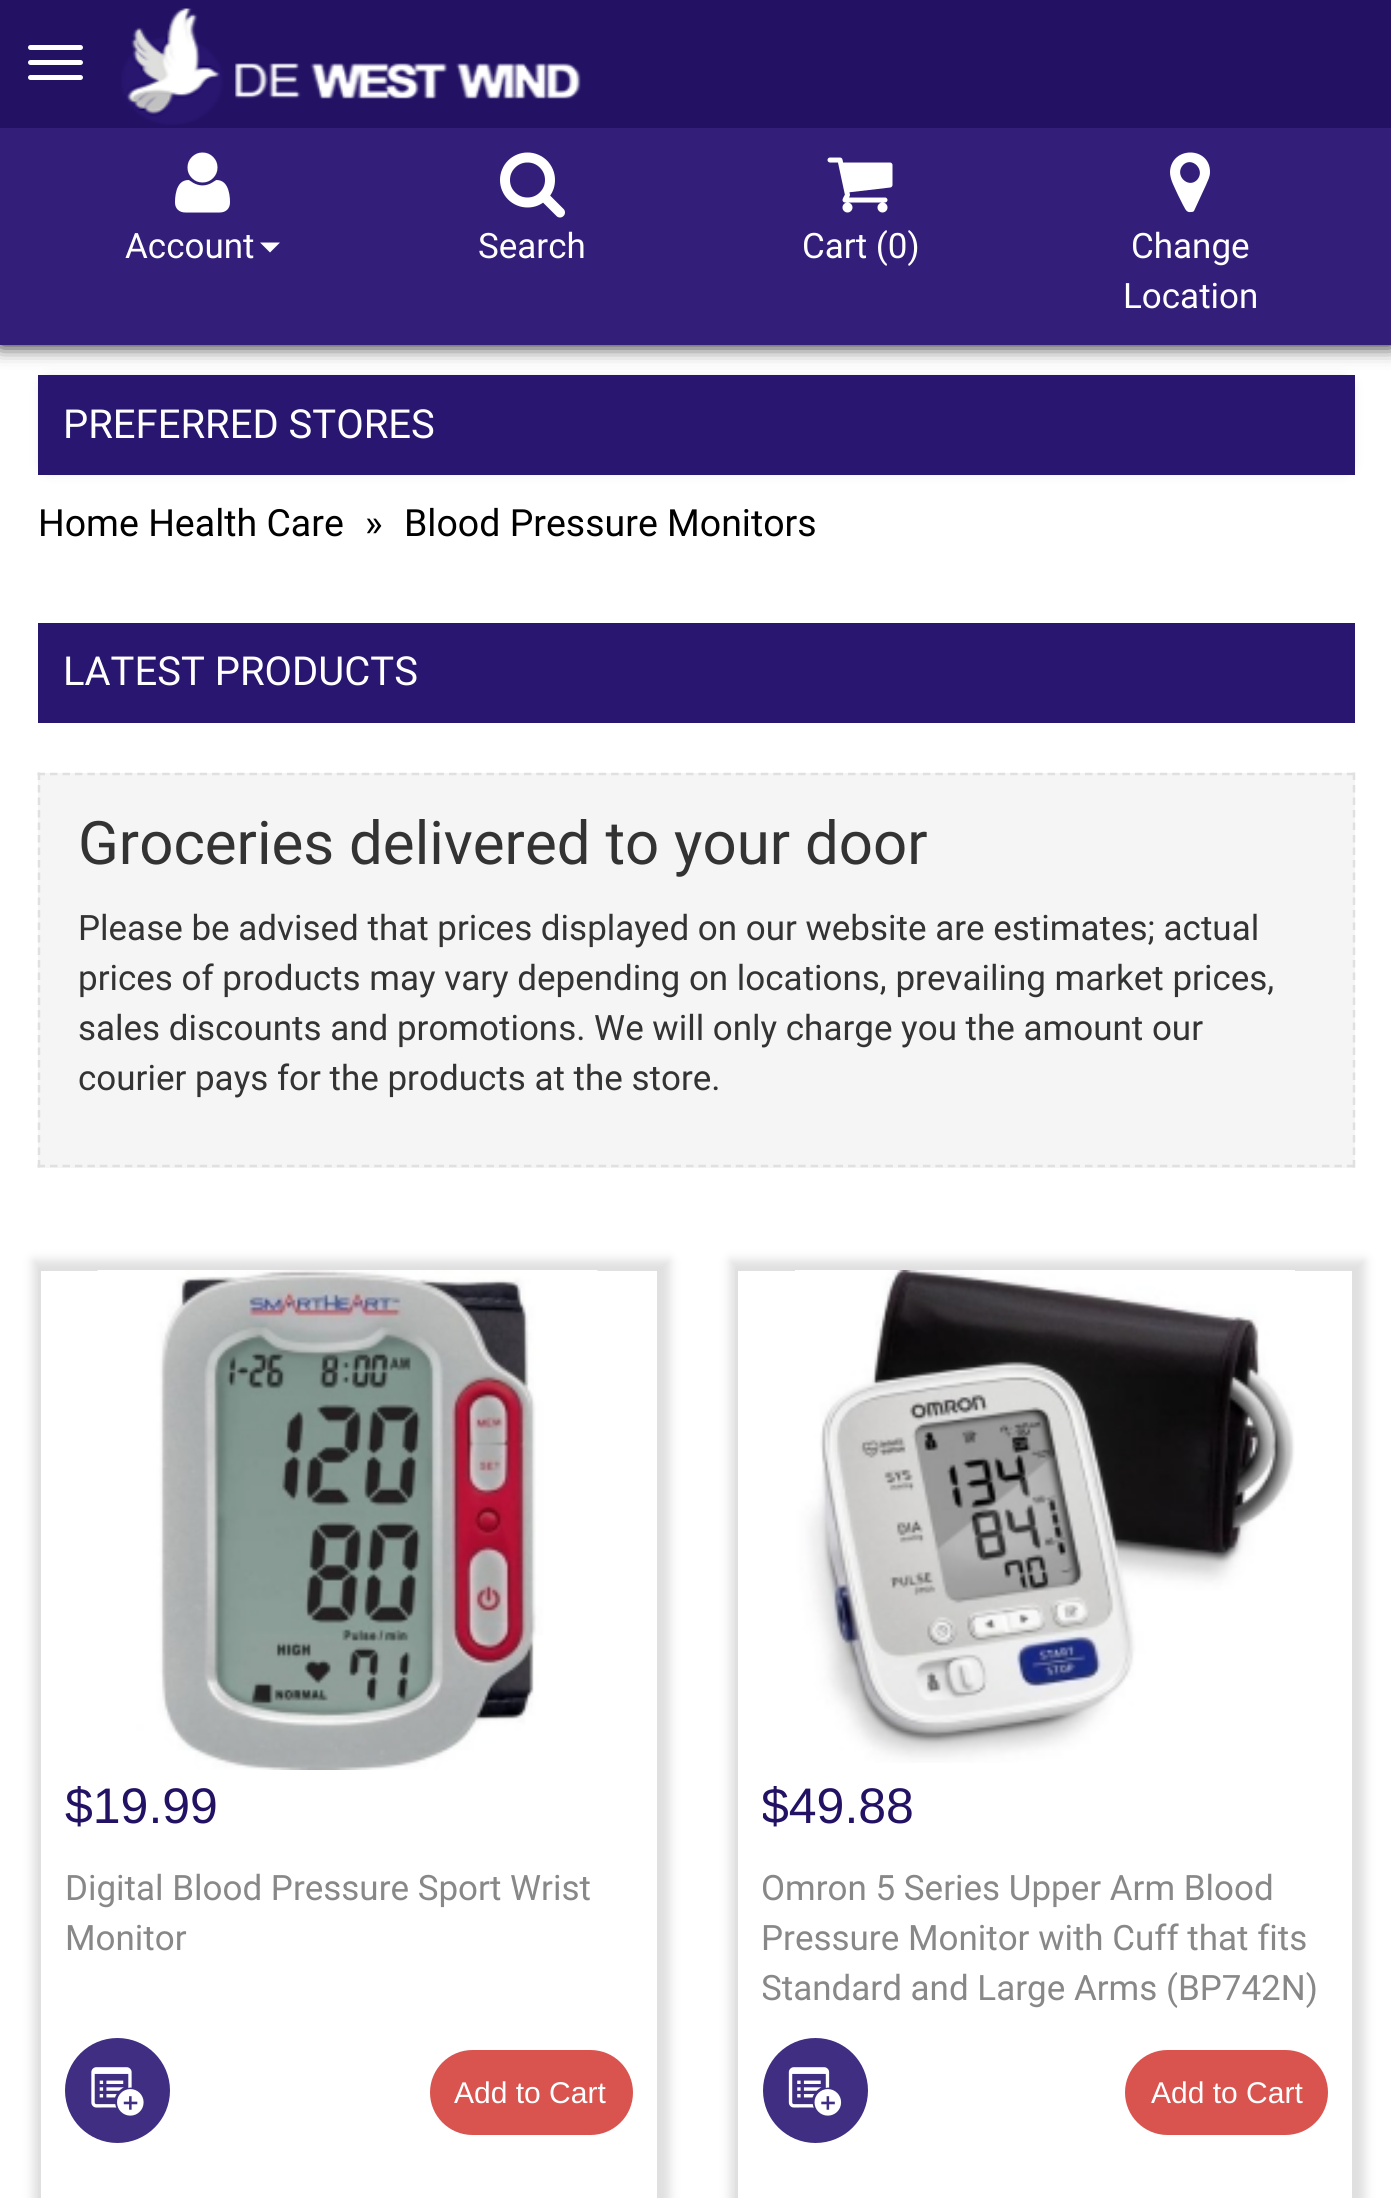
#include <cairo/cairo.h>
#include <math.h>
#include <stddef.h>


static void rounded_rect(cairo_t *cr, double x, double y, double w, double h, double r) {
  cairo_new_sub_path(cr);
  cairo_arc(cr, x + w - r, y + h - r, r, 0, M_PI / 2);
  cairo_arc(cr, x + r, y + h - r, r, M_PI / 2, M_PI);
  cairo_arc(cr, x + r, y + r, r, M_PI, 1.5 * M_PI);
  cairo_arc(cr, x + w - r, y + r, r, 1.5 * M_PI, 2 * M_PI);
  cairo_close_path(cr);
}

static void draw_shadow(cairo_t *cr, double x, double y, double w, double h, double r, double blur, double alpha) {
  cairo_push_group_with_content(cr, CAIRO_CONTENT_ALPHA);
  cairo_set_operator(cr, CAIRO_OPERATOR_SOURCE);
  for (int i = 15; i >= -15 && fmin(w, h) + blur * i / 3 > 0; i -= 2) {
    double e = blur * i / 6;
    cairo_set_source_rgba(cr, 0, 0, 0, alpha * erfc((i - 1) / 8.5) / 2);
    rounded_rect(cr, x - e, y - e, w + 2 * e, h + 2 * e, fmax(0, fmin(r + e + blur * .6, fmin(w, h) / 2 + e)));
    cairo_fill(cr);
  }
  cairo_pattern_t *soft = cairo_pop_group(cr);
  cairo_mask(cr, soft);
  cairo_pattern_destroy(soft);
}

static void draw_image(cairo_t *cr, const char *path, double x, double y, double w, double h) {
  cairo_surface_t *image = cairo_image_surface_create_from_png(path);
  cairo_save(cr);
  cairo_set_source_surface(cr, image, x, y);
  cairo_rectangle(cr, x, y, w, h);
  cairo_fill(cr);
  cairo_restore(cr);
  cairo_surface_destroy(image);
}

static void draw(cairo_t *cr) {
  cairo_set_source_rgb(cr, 1, 1, 1);
  cairo_paint(cr);
  cairo_set_source_rgb(cr, 0, 0, 0);
  draw_shadow(cr, 48, 385, 1297, 80, 0, 7.5, 0.4);
  cairo_set_source_rgb(cr, 41 / 255.0, 22 / 255.0, 112 / 255.0);
  cairo_rectangle(cr, 38, 375, 1317, 100);
  cairo_fill(cr);
  cairo_set_source_rgb(cr, 0, 0, 0);
  draw_shadow(cr, 0, 125, 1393, 220, 0, 10, 1);
  cairo_set_source_rgb(cr, 35 / 255.0, 18 / 255.0, 100 / 255.0);
  cairo_rectangle(cr, 0, 0, 1391, 128);
  cairo_fill(cr);
  cairo_set_source_rgb(cr, 1, 1, 1);
  rounded_rect(cr, 28, 45, 55, 5, 2.5);
  cairo_fill(cr);
  rounded_rect(cr, 28, 60, 55, 5, 2.5);
  cairo_fill(cr);
  rounded_rect(cr, 28, 75, 55, 5, 2.5);
  cairo_fill(cr);
  draw_image(cr, "images/1.png", 121, 8, 460, 117);
  cairo_set_source_rgb(cr, 51 / 255.0, 31 / 255.0, 122 / 255.0);
  cairo_rectangle(cr, 0, 128, 1391, 217);
  cairo_fill(cr);
  draw_image(cr, "images/2.png", 175, 152, 55, 61);
  cairo_set_source_rgb(cr, 1, 1, 1);
  cairo_new_path(cr);
  cairo_move_to(cr, 260, 242.5);
  cairo_line_to(cr, 280, 242.5);
  cairo_line_to(cr, 270, 252.5);
  cairo_close_path(cr);
  cairo_fill(cr);
  draw_image(cr, "images/3.png", 500, 152, 65, 66);
  draw_image(cr, "images/4.png", 827, 157, 66, 56);
  cairo_new_path(cr);
  cairo_move_to(cr, 1197, 180);
  cairo_curve_to(cr, 1206, 170, 1192, 156, 1183, 165);
  cairo_curve_to(cr, 1174, 175, 1188, 189, 1197, 180);
  cairo_close_path(cr);
  cairo_move_to(cr, 1210, 172);
  cairo_curve_to(cr, 1210, 177, 1208, 180, 1206, 185);
  cairo_line_to(cr, 1194, 211);
  cairo_curve_to(cr, 1193, 212, 1192, 212, 1191, 212);
  cairo_curve_to(cr, 1186, 213, 1185, 208, 1183, 205);
  cairo_line_to(cr, 1178, 195);
  cairo_curve_to(cr, 1175, 188, 1170, 180, 1170, 172);
  cairo_curve_to(cr, 1171, 146, 1210, 146, 1210, 172);
  cairo_close_path(cr);
  cairo_fill(cr);
  cairo_set_source_rgb(cr, 41 / 255.0, 22 / 255.0, 112 / 255.0);
  cairo_rectangle(cr, 38, 623, 1317, 100);
  cairo_fill(cr);
  cairo_set_source_rgb(cr, 245 / 255.0, 245 / 255.0, 245 / 255.0);
  cairo_rectangle(cr, 38, 773, 1317, 395);
  cairo_fill(cr);
  cairo_new_path(cr);
  cairo_move_to(cr, 37.5, 774);
  cairo_line_to(cr, 1355, 774);
  cairo_set_source_rgb(cr, 224 / 255.0, 224 / 255.0, 224 / 255.0);
  cairo_set_line_width(cr, 2.5);
  cairo_set_dash(cr, (double[]){7.5, 4.97}, 2, 0);
  cairo_stroke(cr);
  cairo_new_path(cr);
  cairo_move_to(cr, 1354, 772.5);
  cairo_line_to(cr, 1354, 1167.5);
  cairo_set_dash(cr, (double[]){7.5, 5}, 2, 0);
  cairo_stroke(cr);
  cairo_new_path(cr);
  cairo_move_to(cr, 37.5, 1166);
  cairo_line_to(cr, 1355, 1166);
  cairo_set_dash(cr, (double[]){7.5, 4.97}, 2, 0);
  cairo_stroke(cr);
  cairo_new_path(cr);
  cairo_move_to(cr, 39, 772.5);
  cairo_line_to(cr, 39, 1167.5);
  cairo_set_dash(cr, (double[]){7.5, 5}, 2, 0);
  cairo_stroke(cr);
  cairo_save(cr);
  cairo_set_fill_rule(cr, CAIRO_FILL_RULE_EVEN_ODD);
  cairo_new_path(cr);
  cairo_move_to(cr, 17, 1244);
  cairo_line_to(cr, 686, 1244);
  cairo_line_to(cr, 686, 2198);
  cairo_line_to(cr, 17, 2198);
  cairo_close_path(cr);
  cairo_move_to(cr, 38, 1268);
  cairo_line_to(cr, 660, 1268);
  cairo_line_to(cr, 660, 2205);
  cairo_line_to(cr, 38, 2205);
  cairo_close_path(cr);
  cairo_clip(cr);
  cairo_set_source_rgb(cr, 223 / 255.0, 223 / 255.0, 223 / 255.0);
  draw_shadow(cr, 33, 1260, 637, 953, 0, 5, 1);
  cairo_restore(cr);
  cairo_rectangle(cr, 39.5, 1269.5, 619, 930);
  cairo_set_line_width(cr, 3);
  cairo_set_dash(cr, NULL, 0, 0);
  cairo_stroke(cr);
  draw_image(cr, "images/5.png", 97, 1270, 501, 500);
  cairo_set_source_rgb(cr, 64 / 255.0, 46 / 255.0, 130 / 255.0);
  cairo_arc(cr, 117.5, 2090.5, 52.5, 0, 2 * M_PI);
  cairo_fill(cr);
  draw_image(cr, "images/6.png", 91, 2067, 53, 49);
  cairo_set_source_rgb(cr, 217 / 255.0, 83 / 255.0, 79 / 255.0);
  rounded_rect(cr, 430, 2050, 203, 85, 42.5);
  cairo_fill(cr);
  cairo_save(cr);
  cairo_set_fill_rule(cr, CAIRO_FILL_RULE_EVEN_ODD);
  cairo_new_path(cr);
  cairo_move_to(cr, 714, 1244);
  cairo_line_to(cr, 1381, 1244);
  cairo_line_to(cr, 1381, 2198);
  cairo_line_to(cr, 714, 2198);
  cairo_close_path(cr);
  cairo_move_to(cr, 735, 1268);
  cairo_line_to(cr, 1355, 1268);
  cairo_line_to(cr, 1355, 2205);
  cairo_line_to(cr, 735, 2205);
  cairo_close_path(cr);
  cairo_clip(cr);
  cairo_set_source_rgb(cr, 223 / 255.0, 223 / 255.0, 223 / 255.0);
  draw_shadow(cr, 730, 1260, 635, 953, 0, 5, 1);
  cairo_restore(cr);
  cairo_rectangle(cr, 736.5, 1269.5, 617, 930);
  cairo_set_source_rgb(cr, 224 / 255.0, 224 / 255.0, 224 / 255.0);
  cairo_stroke(cr);
  draw_image(cr, "images/7.png", 795, 1270, 500, 493);
  cairo_set_source_rgb(cr, 64 / 255.0, 46 / 255.0, 130 / 255.0);
  cairo_arc(cr, 815.5, 2090.5, 52.5, 0, 2 * M_PI);
  cairo_fill(cr);
  draw_image(cr, "images/8.png", 788, 2067, 54, 49);
  cairo_set_source_rgb(cr, 217 / 255.0, 83 / 255.0, 79 / 255.0);
  rounded_rect(cr, 1125, 2050, 203, 85, 42.5);
  cairo_fill(cr);
  cairo_select_font_face(cr, "Roboto", CAIRO_FONT_SLANT_NORMAL, CAIRO_FONT_WEIGHT_NORMAL);
  cairo_set_font_size(cr, 35);
  cairo_set_source_rgb(cr, 1, 1, 1);
  cairo_move_to(cr, 125, 258);
  cairo_show_text(cr, "Account");
  cairo_move_to(cr, 478, 258);
  cairo_show_text(cr, "Search");
  cairo_move_to(cr, 802, 258);
  cairo_show_text(cr, "Cart (0)");
  cairo_move_to(cr, 1131, 258);
  cairo_show_text(cr, "Change");
  cairo_move_to(cr, 1123, 308);
  cairo_show_text(cr, "Location");
  cairo_set_font_size(cr, 40);
  cairo_move_to(cr, 63, 438);
  cairo_show_text(cr, "PREFERRED STORES");
  cairo_set_font_size(cr, 37.5);
  cairo_set_source_rgb(cr, 0, 0, 0);
  cairo_move_to(cr, 38, 536);
  cairo_show_text(cr, "Home Health Care");
  cairo_move_to(cr, 365, 536);
  cairo_show_text(cr, "»");
  cairo_move_to(cr, 404, 536);
  cairo_show_text(cr, "Blood Pressure Monitors");
  cairo_set_font_size(cr, 40);
  cairo_set_source_rgb(cr, 1, 1, 1);
  cairo_move_to(cr, 63, 685);
  cairo_show_text(cr, "LATEST PRODUCTS");
  cairo_set_font_size(cr, 60);
  cairo_set_source_rgb(cr, 51 / 255.0, 51 / 255.0, 51 / 255.0);
  cairo_move_to(cr, 78, 864);
  cairo_show_text(cr, "Groceries delivered to your door");
  cairo_set_font_size(cr, 35);
  cairo_move_to(cr, 78, 940);
  cairo_show_text(cr, "Please be advised that prices displayed on our website are estimates; actual");
  cairo_move_to(cr, 78, 990);
  cairo_show_text(cr, "prices of products may vary depending on locations, prevailing market prices,");
  cairo_move_to(cr, 78, 1040);
  cairo_show_text(cr, "sales discounts and promotions. We will only charge you the amount our");
  cairo_move_to(cr, 78, 1090);
  cairo_show_text(cr, "courier pays for the products at the store.");
  cairo_select_font_face(cr, "Liberation Sans", CAIRO_FONT_SLANT_NORMAL, CAIRO_FONT_WEIGHT_NORMAL);
  cairo_set_font_size(cr, 50);
  cairo_set_source_rgb(cr, 35 / 255.0, 18 / 255.0, 100 / 255.0);
  cairo_move_to(cr, 65, 1823);
  cairo_show_text(cr, "$19.99");
  cairo_select_font_face(cr, "Roboto", CAIRO_FONT_SLANT_NORMAL, CAIRO_FONT_WEIGHT_NORMAL);
  cairo_set_font_size(cr, 35);
  cairo_set_source_rgb(cr, 136 / 255.0, 136 / 255.0, 136 / 255.0);
  cairo_move_to(cr, 65, 1900);
  cairo_show_text(cr, "Digital Blood Pressure Sport Wrist");
  cairo_move_to(cr, 65, 1950);
  cairo_show_text(cr, "Monitor");
  cairo_select_font_face(cr, "Liberation Sans", CAIRO_FONT_SLANT_NORMAL, CAIRO_FONT_WEIGHT_NORMAL);
  cairo_set_font_size(cr, 30);
  cairo_set_source_rgb(cr, 1, 1, 1);
  cairo_move_to(cr, 454, 2103);
  cairo_show_text(cr, "Add to Cart");
  cairo_save(cr);
  cairo_rectangle(cr, 763, 1783, 565, 55);
  cairo_clip(cr);
  cairo_set_font_size(cr, 50);
  cairo_set_source_rgb(cr, 35 / 255.0, 18 / 255.0, 100 / 255.0);
  cairo_move_to(cr, 761, 1823);
  cairo_show_text(cr, "$49.88");
  cairo_restore(cr);
  cairo_select_font_face(cr, "Roboto", CAIRO_FONT_SLANT_NORMAL, CAIRO_FONT_WEIGHT_NORMAL);
  cairo_set_font_size(cr, 35);
  cairo_set_source_rgb(cr, 136 / 255.0, 136 / 255.0, 136 / 255.0);
  cairo_move_to(cr, 761, 1900);
  cairo_show_text(cr, "Omron 5 Series Upper Arm Blood");
  cairo_move_to(cr, 761, 1950);
  cairo_show_text(cr, "Pressure Monitor with Cuff that fits");
  cairo_save(cr);
  cairo_rectangle(cr, 763, 1838, 565, 175);
  cairo_clip(cr);
  cairo_move_to(cr, 761, 2000);
  cairo_show_text(cr, "Standard and Large Arms (BP742N)");
  cairo_restore(cr);
  cairo_select_font_face(cr, "Liberation Sans", CAIRO_FONT_SLANT_NORMAL, CAIRO_FONT_WEIGHT_NORMAL);
  cairo_set_font_size(cr, 30);
  cairo_set_source_rgb(cr, 1, 1, 1);
  cairo_move_to(cr, 1151, 2103);
  cairo_show_text(cr, "Add to Cart");
}

int main(void) {
  cairo_surface_t *surface = cairo_image_surface_create(CAIRO_FORMAT_RGB24, 1391, 2198);
  cairo_t *cr = cairo_create(surface);
  cairo_font_options_t *options = cairo_font_options_create();
  cairo_font_options_set_hint_metrics(options, CAIRO_HINT_METRICS_OFF);
  cairo_font_options_set_hint_style(options, CAIRO_HINT_STYLE_NONE);
  cairo_set_font_options(cr, options);
  cairo_set_miter_limit(cr, 4);
  draw(cr);
  cairo_surface_write_to_png(surface, "out.png");
  cairo_font_options_destroy(options);
  cairo_destroy(cr);
  cairo_surface_destroy(surface);
  return 0;
}
